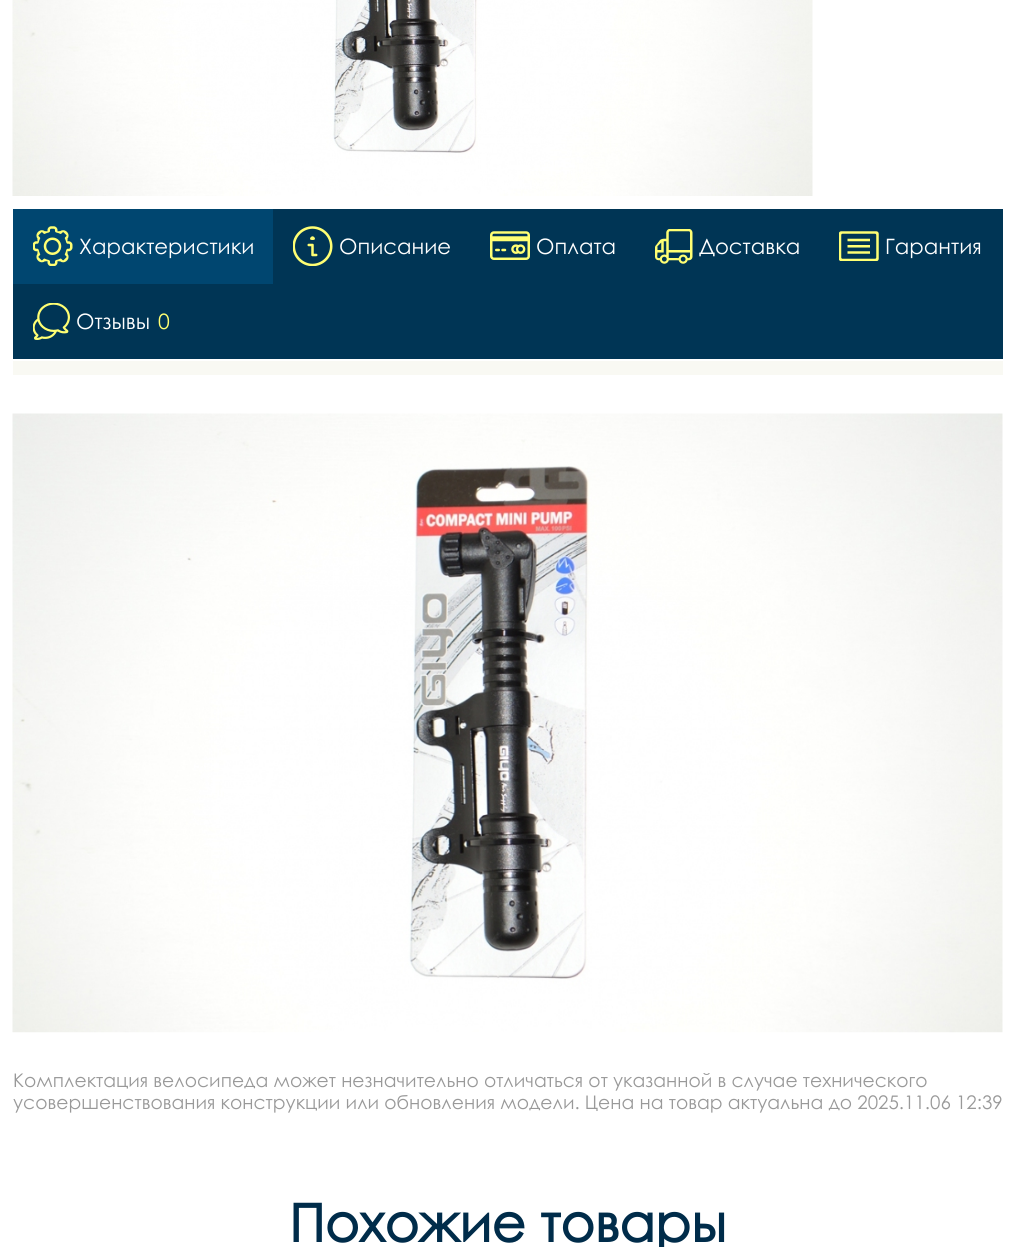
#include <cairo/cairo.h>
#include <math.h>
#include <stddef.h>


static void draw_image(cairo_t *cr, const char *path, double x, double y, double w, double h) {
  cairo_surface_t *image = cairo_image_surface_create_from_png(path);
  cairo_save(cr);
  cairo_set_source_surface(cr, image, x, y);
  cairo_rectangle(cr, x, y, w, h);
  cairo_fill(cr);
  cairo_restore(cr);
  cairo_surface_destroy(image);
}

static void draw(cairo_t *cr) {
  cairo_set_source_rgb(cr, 1, 1, 1);
  cairo_paint(cr);
  draw_image(cr, "images/1.png", 12, 0, 801, 196);
  cairo_set_source_rgb(cr, 0, 53 / 255.0, 85 / 255.0);
  cairo_rectangle(cr, 13, 209, 990, 150);
  cairo_fill(cr);
  cairo_set_source_rgb(cr, 0, 70 / 255.0, 112 / 255.0);
  cairo_rectangle(cr, 13, 209, 260, 75);
  cairo_fill(cr);
  draw_image(cr, "images/2.png", 33, 226, 40, 40);
  draw_image(cr, "images/3.png", 293, 226, 40, 40);
  draw_image(cr, "images/4.png", 490, 231, 40, 29);
  draw_image(cr, "images/5.png", 655, 229, 38, 35);
  draw_image(cr, "images/6.png", 839, 231, 40, 30);
  draw_image(cr, "images/7.png", 33, 303, 37, 37);
  cairo_set_source_rgb(cr, 249 / 255.0, 249 / 255.0, 243 / 255.0);
  cairo_rectangle(cr, 13, 361, 990, 14);
  cairo_fill(cr);
  draw_image(cr, "images/8.png", 12, 413, 991, 620);
  cairo_select_font_face(cr, "Century Gothic", CAIRO_FONT_SLANT_NORMAL, CAIRO_FONT_WEIGHT_NORMAL);
  cairo_set_font_size(cr, 21.25);
  cairo_set_source_rgb(cr, 1, 1, 1);
  cairo_move_to(cr, 79, 254);
  cairo_show_text(cr, "Характеристики");
  cairo_move_to(cr, 339, 254);
  cairo_show_text(cr, "Описание");
  cairo_move_to(cr, 536, 254);
  cairo_show_text(cr, "Оплата");
  cairo_move_to(cr, 699, 254);
  cairo_show_text(cr, "Доставка");
  cairo_move_to(cr, 885, 254);
  cairo_show_text(cr, "Гарантия");
  cairo_move_to(cr, 76, 329);
  cairo_show_text(cr, "Отзывы");
  cairo_set_source_rgb(cr, 1, 1, 114 / 255.0);
  cairo_move_to(cr, 158, 329);
  cairo_show_text(cr, "0");
  cairo_set_font_size(cr, 18.75);
  cairo_set_source_rgb(cr, 153 / 255.0, 153 / 255.0, 153 / 255.0);
  cairo_move_to(cr, 13, 1087);
  cairo_show_text(cr, "Комплектация велосипеда может незначительно отличаться от указанной в случае технического");
  cairo_move_to(cr, 13, 1109);
  cairo_show_text(cr, "усовершенствования конструкции или обновления модели. Цена на товар актуальна до 2025.11.06 12:39");
  cairo_select_font_face(cr, "Century Gothic", CAIRO_FONT_SLANT_NORMAL, CAIRO_FONT_WEIGHT_BOLD);
  cairo_set_font_size(cr, 52.5);
  cairo_set_source_rgb(cr, 0, 44 / 255.0, 74 / 255.0);
  cairo_move_to(cr, 289, 1242);
  cairo_show_text(cr, "Похожие товары");
}

int main(void) {
  cairo_surface_t *surface = cairo_image_surface_create(CAIRO_FORMAT_RGB24, 1015, 1247);
  cairo_t *cr = cairo_create(surface);
  cairo_font_options_t *options = cairo_font_options_create();
  cairo_font_options_set_hint_metrics(options, CAIRO_HINT_METRICS_OFF);
  cairo_font_options_set_hint_style(options, CAIRO_HINT_STYLE_NONE);
  cairo_set_font_options(cr, options);
  cairo_set_miter_limit(cr, 4);
  draw(cr);
  cairo_surface_write_to_png(surface, "out.png");
  cairo_font_options_destroy(options);
  cairo_destroy(cr);
  cairo_surface_destroy(surface);
  return 0;
}
